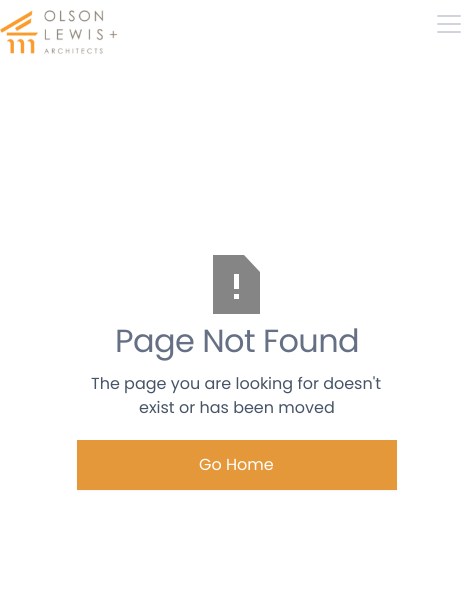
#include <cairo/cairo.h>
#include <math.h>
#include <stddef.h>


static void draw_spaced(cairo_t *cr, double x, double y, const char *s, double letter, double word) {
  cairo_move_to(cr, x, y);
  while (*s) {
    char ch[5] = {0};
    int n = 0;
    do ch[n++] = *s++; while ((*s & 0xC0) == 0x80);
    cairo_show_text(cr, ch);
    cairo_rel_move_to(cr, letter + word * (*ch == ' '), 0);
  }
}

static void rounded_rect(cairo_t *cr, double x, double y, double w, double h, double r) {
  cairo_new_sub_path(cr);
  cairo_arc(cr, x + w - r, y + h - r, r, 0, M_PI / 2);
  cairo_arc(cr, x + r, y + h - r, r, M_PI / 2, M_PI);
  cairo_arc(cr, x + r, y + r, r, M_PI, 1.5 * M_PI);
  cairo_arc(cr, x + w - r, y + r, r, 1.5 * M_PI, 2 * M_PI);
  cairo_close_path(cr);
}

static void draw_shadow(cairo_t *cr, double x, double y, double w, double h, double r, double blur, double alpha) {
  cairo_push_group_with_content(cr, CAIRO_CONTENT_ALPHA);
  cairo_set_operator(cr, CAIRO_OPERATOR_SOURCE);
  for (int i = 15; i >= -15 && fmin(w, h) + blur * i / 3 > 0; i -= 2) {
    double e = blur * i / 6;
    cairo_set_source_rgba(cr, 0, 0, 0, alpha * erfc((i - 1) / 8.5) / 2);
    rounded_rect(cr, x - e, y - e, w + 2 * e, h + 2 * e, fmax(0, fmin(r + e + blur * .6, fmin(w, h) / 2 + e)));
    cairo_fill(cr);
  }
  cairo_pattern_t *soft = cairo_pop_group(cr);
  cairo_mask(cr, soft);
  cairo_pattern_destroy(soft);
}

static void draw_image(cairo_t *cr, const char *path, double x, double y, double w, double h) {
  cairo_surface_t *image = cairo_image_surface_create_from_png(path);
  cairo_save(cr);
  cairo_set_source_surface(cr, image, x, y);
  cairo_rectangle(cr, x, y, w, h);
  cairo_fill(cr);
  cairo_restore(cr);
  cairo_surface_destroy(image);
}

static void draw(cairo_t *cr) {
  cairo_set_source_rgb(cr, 1, 1, 1);
  cairo_paint(cr);
  draw_image(cr, "images/1.png", 0, 10, 118, 44);
  cairo_set_source_rgb(cr, 208 / 255.0, 213 / 255.0, 221 / 255.0);
  rounded_rect(cr, 437, 15, 24, 2, 1);
  cairo_fill(cr);
  rounded_rect(cr, 437, 23, 24, 2, 1);
  cairo_fill(cr);
  rounded_rect(cr, 437, 31, 24, 2, 1);
  cairo_fill(cr);
  cairo_set_source_rgb(cr, 133 / 255.0, 133 / 255.0, 133 / 255.0);
  cairo_set_fill_rule(cr, CAIRO_FILL_RULE_EVEN_ODD);
  cairo_new_path(cr);
  cairo_move_to(cr, 213, 255);
  cairo_line_to(cr, 244, 255);
  cairo_line_to(cr, 260, 272);
  cairo_line_to(cr, 260, 314);
  cairo_line_to(cr, 213, 314);
  cairo_close_path(cr);
  cairo_move_to(cr, 234, 274);
  cairo_line_to(cr, 239, 274);
  cairo_line_to(cr, 239, 289);
  cairo_line_to(cr, 234, 289);
  cairo_close_path(cr);
  cairo_move_to(cr, 234, 294);
  cairo_line_to(cr, 239, 294);
  cairo_line_to(cr, 239, 299);
  cairo_line_to(cr, 234, 299);
  cairo_close_path(cr);
  cairo_fill(cr);
  cairo_set_source_rgb(cr, 16 / 255.0, 24 / 255.0, 40 / 255.0);
  draw_shadow(cr, 77, 441, 320, 50, 0, 1, 0.05);
  cairo_set_source_rgb(cr, 229 / 255.0, 152 / 255.0, 57 / 255.0);
  cairo_rectangle(cr, 77, 440, 320, 50);
  cairo_fill(cr);
  cairo_select_font_face(cr, "Poppins", CAIRO_FONT_SLANT_NORMAL, CAIRO_FONT_WEIGHT_NORMAL);
  cairo_set_font_size(cr, 32);
  cairo_set_source_rgb(cr, 102 / 255.0, 112 / 255.0, 133 / 255.0);
  draw_spaced(cr, 115, 352, "Page Not Found", -0.6, 0);
  cairo_set_font_size(cr, 16);
  cairo_set_source_rgb(cr, 71 / 255.0, 84 / 255.0, 103 / 255.0);
  cairo_move_to(cr, 91, 389);
  cairo_show_text(cr, "The page you are looking for doesn't");
  cairo_move_to(cr, 139, 413);
  cairo_show_text(cr, "exist or has been moved");
  cairo_set_source_rgb(cr, 1, 1, 1);
  cairo_move_to(cr, 199, 470);
  cairo_show_text(cr, "Go Home");
}

int main(void) {
  cairo_surface_t *surface = cairo_image_surface_create(CAIRO_FORMAT_RGB24, 473, 616);
  cairo_t *cr = cairo_create(surface);
  cairo_font_options_t *options = cairo_font_options_create();
  cairo_font_options_set_hint_metrics(options, CAIRO_HINT_METRICS_OFF);
  cairo_font_options_set_hint_style(options, CAIRO_HINT_STYLE_NONE);
  cairo_set_font_options(cr, options);
  cairo_set_miter_limit(cr, 4);
  draw(cr);
  cairo_surface_write_to_png(surface, "out.png");
  cairo_font_options_destroy(options);
  cairo_destroy(cr);
  cairo_surface_destroy(surface);
  return 0;
}
